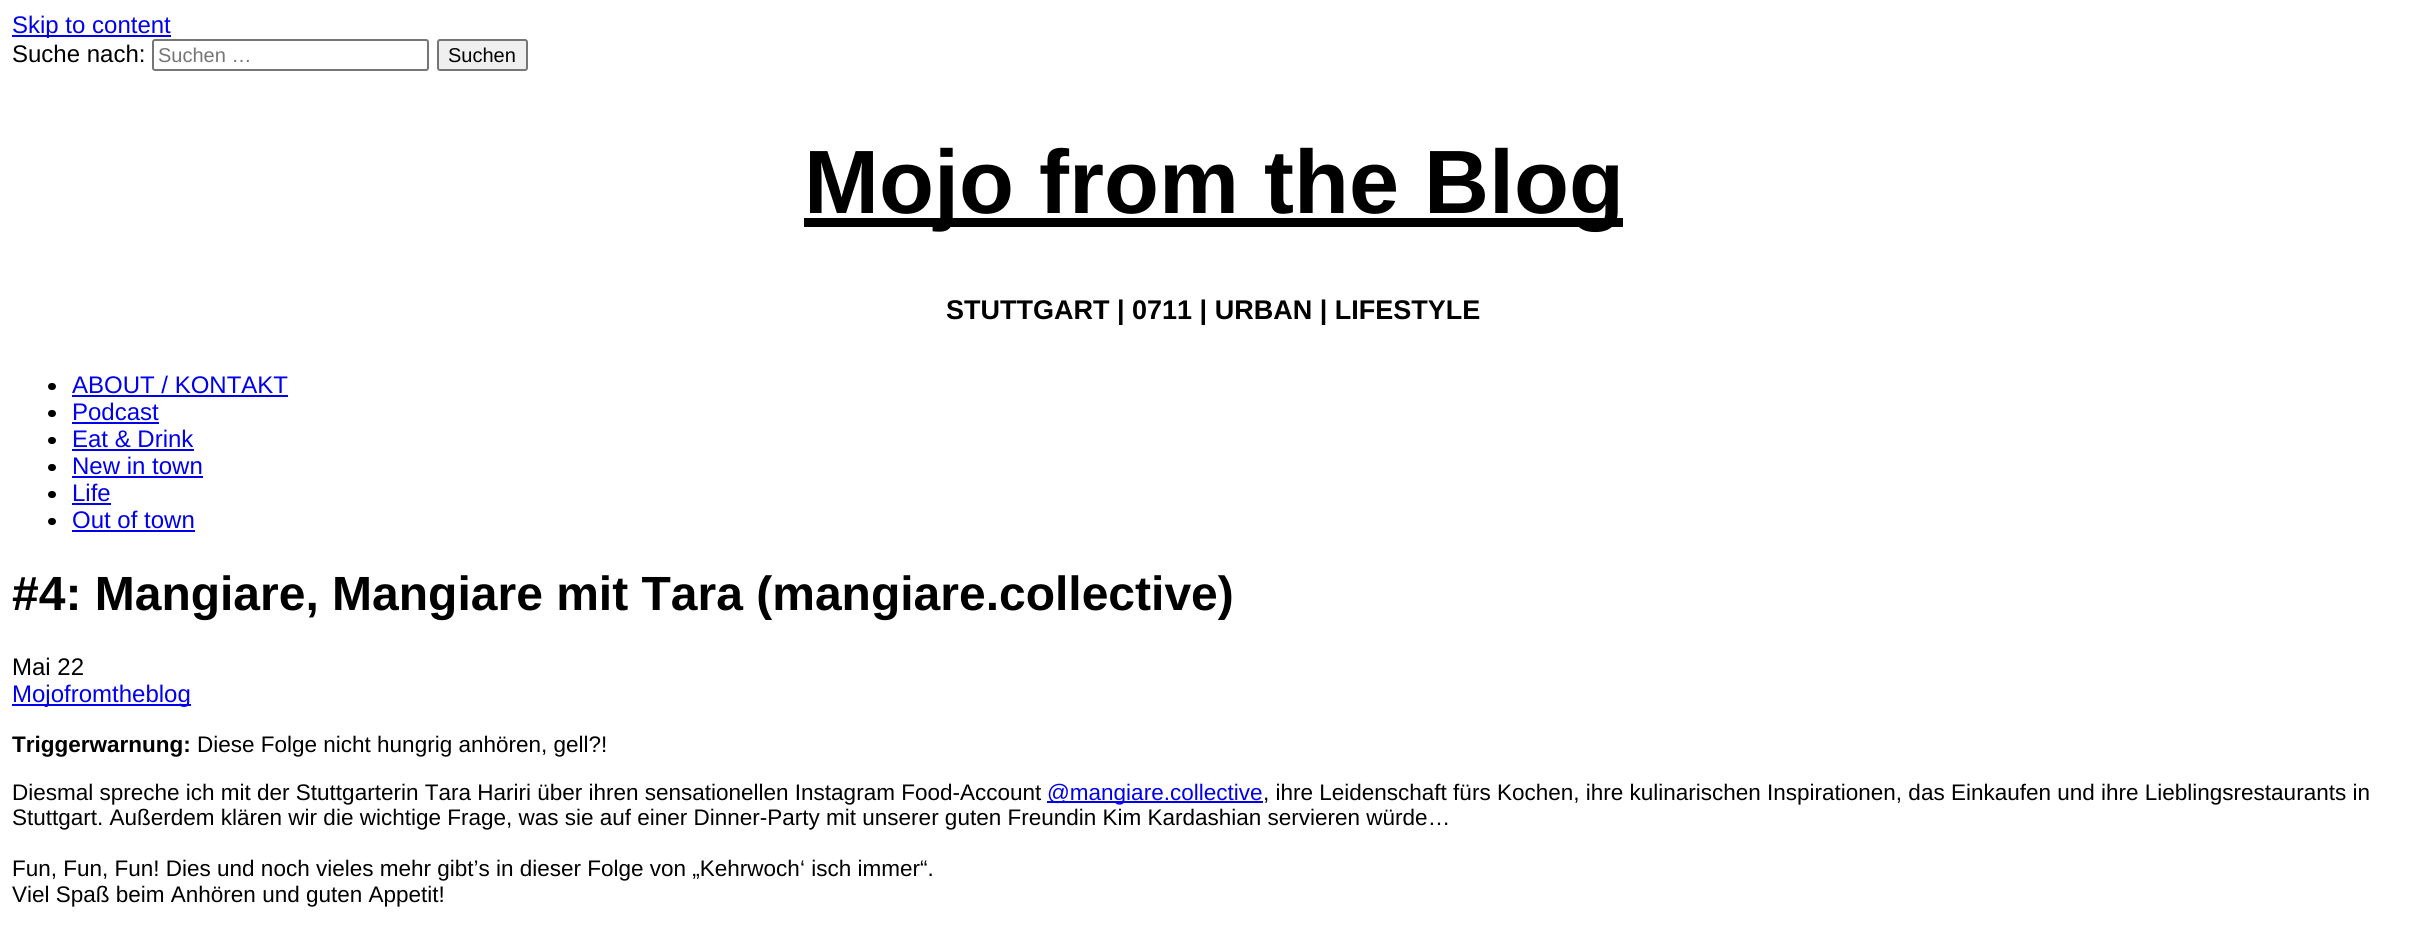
#include <cairo/cairo.h>
#include <math.h>
#include <stddef.h>


static void rounded_rect(cairo_t *cr, double x, double y, double w, double h, double r) {
  cairo_new_sub_path(cr);
  cairo_arc(cr, x + w - r, y + h - r, r, 0, M_PI / 2);
  cairo_arc(cr, x + r, y + h - r, r, M_PI / 2, M_PI);
  cairo_arc(cr, x + r, y + r, r, M_PI, 1.5 * M_PI);
  cairo_arc(cr, x + w - r, y + r, r, 1.5 * M_PI, 2 * M_PI);
  cairo_close_path(cr);
}

static void draw(cairo_t *cr) {
  cairo_set_source_rgb(cr, 1, 1, 1);
  cairo_paint(cr);
  cairo_set_source_rgb(cr, 0, 0, 238 / 255.0);
  cairo_rectangle(cr, 12, 35, 159, 2);
  cairo_fill(cr);
  rounded_rect(cr, 153, 40, 275, 30, 2);
  cairo_set_source_rgb(cr, 118 / 255.0, 118 / 255.0, 118 / 255.0);
  cairo_stroke(cr);
  cairo_set_source_rgb(cr, 239 / 255.0, 239 / 255.0, 239 / 255.0);
  rounded_rect(cr, 438, 40, 89, 30, 2);
  cairo_fill_preserve(cr);
  cairo_set_source_rgb(cr, 118 / 255.0, 118 / 255.0, 118 / 255.0);
  cairo_stroke(cr);
  cairo_set_source_rgb(cr, 0, 0, 0);
  cairo_rectangle(cr, 804, 218, 819, 9);
  cairo_fill(cr);
  rounded_rect(cr, 48, 383, 8, 7, 3.5);
  cairo_fill(cr);
  cairo_set_source_rgb(cr, 0, 0, 238 / 255.0);
  cairo_rectangle(cr, 72, 395, 216, 2);
  cairo_fill(cr);
  cairo_set_source_rgb(cr, 0, 0, 0);
  rounded_rect(cr, 48, 410, 8, 7, 3.5);
  cairo_fill(cr);
  cairo_set_source_rgb(cr, 0, 0, 238 / 255.0);
  cairo_rectangle(cr, 72, 422, 87, 2);
  cairo_fill(cr);
  cairo_set_source_rgb(cr, 0, 0, 0);
  rounded_rect(cr, 48, 437, 8, 7, 3.5);
  cairo_fill(cr);
  cairo_set_source_rgb(cr, 0, 0, 238 / 255.0);
  cairo_rectangle(cr, 72, 449, 122, 2);
  cairo_fill(cr);
  cairo_set_source_rgb(cr, 0, 0, 0);
  rounded_rect(cr, 48, 464, 8, 7, 3.5);
  cairo_fill(cr);
  cairo_set_source_rgb(cr, 0, 0, 238 / 255.0);
  cairo_rectangle(cr, 72, 476, 131, 2);
  cairo_fill(cr);
  cairo_set_source_rgb(cr, 0, 0, 0);
  rounded_rect(cr, 48, 491, 8, 7, 3.5);
  cairo_fill(cr);
  cairo_set_source_rgb(cr, 0, 0, 238 / 255.0);
  cairo_rectangle(cr, 72, 503, 39, 2);
  cairo_fill(cr);
  cairo_set_source_rgb(cr, 0, 0, 0);
  rounded_rect(cr, 48, 518, 8, 7, 3.5);
  cairo_fill(cr);
  cairo_set_source_rgb(cr, 0, 0, 238 / 255.0);
  cairo_rectangle(cr, 72, 530, 123, 2);
  cairo_fill(cr);
  cairo_rectangle(cr, 12, 704, 179, 2);
  cairo_fill(cr);
  cairo_rectangle(cr, 1047, 801, 216, 2);
  cairo_fill(cr);
  cairo_select_font_face(cr, "Liberation Sans", CAIRO_FONT_SLANT_NORMAL, CAIRO_FONT_WEIGHT_NORMAL);
  cairo_set_font_size(cr, 24);
  cairo_move_to(cr, 12, 33);
  cairo_show_text(cr, "Skip to content");
  cairo_set_source_rgb(cr, 0, 0, 0);
  cairo_move_to(cr, 12, 62);
  cairo_show_text(cr, "Suche nach:");
  cairo_set_font_size(cr, 20);
  cairo_set_source_rgb(cr, 117 / 255.0, 117 / 255.0, 117 / 255.0);
  cairo_move_to(cr, 158, 62);
  cairo_show_text(cr, "Suchen …");
  cairo_set_source_rgb(cr, 0, 0, 0);
  cairo_move_to(cr, 448, 62);
  cairo_show_text(cr, "Suchen");
  cairo_select_font_face(cr, "Liberation Sans", CAIRO_FONT_SLANT_NORMAL, CAIRO_FONT_WEIGHT_BOLD);
  cairo_set_font_size(cr, 90);
  cairo_move_to(cr, 804, 213);
  cairo_show_text(cr, "Mojo from the Blog");
  cairo_set_font_size(cr, 27);
  cairo_move_to(cr, 946, 319);
  cairo_show_text(cr, "STUTTGART | 0711 | URBAN | LIFESTYLE");
  cairo_select_font_face(cr, "Liberation Sans", CAIRO_FONT_SLANT_NORMAL, CAIRO_FONT_WEIGHT_NORMAL);
  cairo_set_font_size(cr, 24);
  cairo_set_source_rgb(cr, 0, 0, 238 / 255.0);
  cairo_move_to(cr, 72, 393);
  cairo_show_text(cr, "ABOUT / KONTAKT");
  cairo_move_to(cr, 72, 420);
  cairo_show_text(cr, "Podcast");
  cairo_move_to(cr, 72, 447);
  cairo_show_text(cr, "Eat & Drink");
  cairo_move_to(cr, 72, 474);
  cairo_show_text(cr, "New in town");
  cairo_move_to(cr, 72, 501);
  cairo_show_text(cr, "Life");
  cairo_move_to(cr, 72, 528);
  cairo_show_text(cr, "Out of town");
  cairo_select_font_face(cr, "Liberation Sans", CAIRO_FONT_SLANT_NORMAL, CAIRO_FONT_WEIGHT_BOLD);
  cairo_set_font_size(cr, 48);
  cairo_set_source_rgb(cr, 0, 0, 0);
  cairo_move_to(cr, 12, 610);
  cairo_show_text(cr, "#4: Mangiare, Mangiare mit Tara (mangiare.collective)");
  cairo_select_font_face(cr, "Liberation Sans", CAIRO_FONT_SLANT_NORMAL, CAIRO_FONT_WEIGHT_NORMAL);
  cairo_set_font_size(cr, 24);
  cairo_move_to(cr, 12, 675);
  cairo_show_text(cr, "Mai 22");
  cairo_set_source_rgb(cr, 0, 0, 238 / 255.0);
  cairo_move_to(cr, 12, 702);
  cairo_show_text(cr, "Mojofromtheblog");
  cairo_select_font_face(cr, "Liberation Sans", CAIRO_FONT_SLANT_NORMAL, CAIRO_FONT_WEIGHT_BOLD);
  cairo_set_font_size(cr, 22.5);
  cairo_set_source_rgb(cr, 0, 0, 0);
  cairo_move_to(cr, 12, 752);
  cairo_show_text(cr, "Triggerwarnung:");
  cairo_select_font_face(cr, "Liberation Sans", CAIRO_FONT_SLANT_NORMAL, CAIRO_FONT_WEIGHT_NORMAL);
  cairo_move_to(cr, 197, 752);
  cairo_show_text(cr, "Diese Folge nicht hungrig anhören, gell?!");
  cairo_move_to(cr, 12, 800);
  cairo_show_text(cr, "Diesmal spreche ich mit der Stuttgarterin Tara Hariri über ihren sensationellen Instagram Food-Account");
  cairo_set_source_rgb(cr, 0, 0, 238 / 255.0);
  cairo_move_to(cr, 1047, 800);
  cairo_show_text(cr, "@mangiare.collective");
  cairo_set_source_rgb(cr, 0, 0, 0);
  cairo_move_to(cr, 1263, 800);
  cairo_show_text(cr, ", ihre Leidenschaft fürs Kochen, ihre kulinarischen Inspirationen, das Einkaufen und ihre Lieblingsrestaurants in");
  cairo_move_to(cr, 12, 825);
  cairo_show_text(cr, "Stuttgart. Außerdem klären wir die wichtige Frage, was sie auf einer Dinner-Party mit unserer guten Freundin Kim Kardashian servieren würde…");
  cairo_move_to(cr, 12, 876);
  cairo_show_text(cr, "Fun, Fun, Fun! Dies und noch vieles mehr gibt’s in dieser Folge von „Kehrwoch‘ isch immer“.");
  cairo_move_to(cr, 12, 902);
  cairo_show_text(cr, "Viel Spaß beim Anhören und guten Appetit!");
}

int main(void) {
  cairo_surface_t *surface = cairo_image_surface_create(CAIRO_FORMAT_RGB24, 2426, 926);
  cairo_t *cr = cairo_create(surface);
  cairo_font_options_t *options = cairo_font_options_create();
  cairo_font_options_set_hint_metrics(options, CAIRO_HINT_METRICS_OFF);
  cairo_font_options_set_hint_style(options, CAIRO_HINT_STYLE_NONE);
  cairo_set_font_options(cr, options);
  cairo_set_miter_limit(cr, 4);
  draw(cr);
  cairo_surface_write_to_png(surface, "out.png");
  cairo_font_options_destroy(options);
  cairo_destroy(cr);
  cairo_surface_destroy(surface);
  return 0;
}
